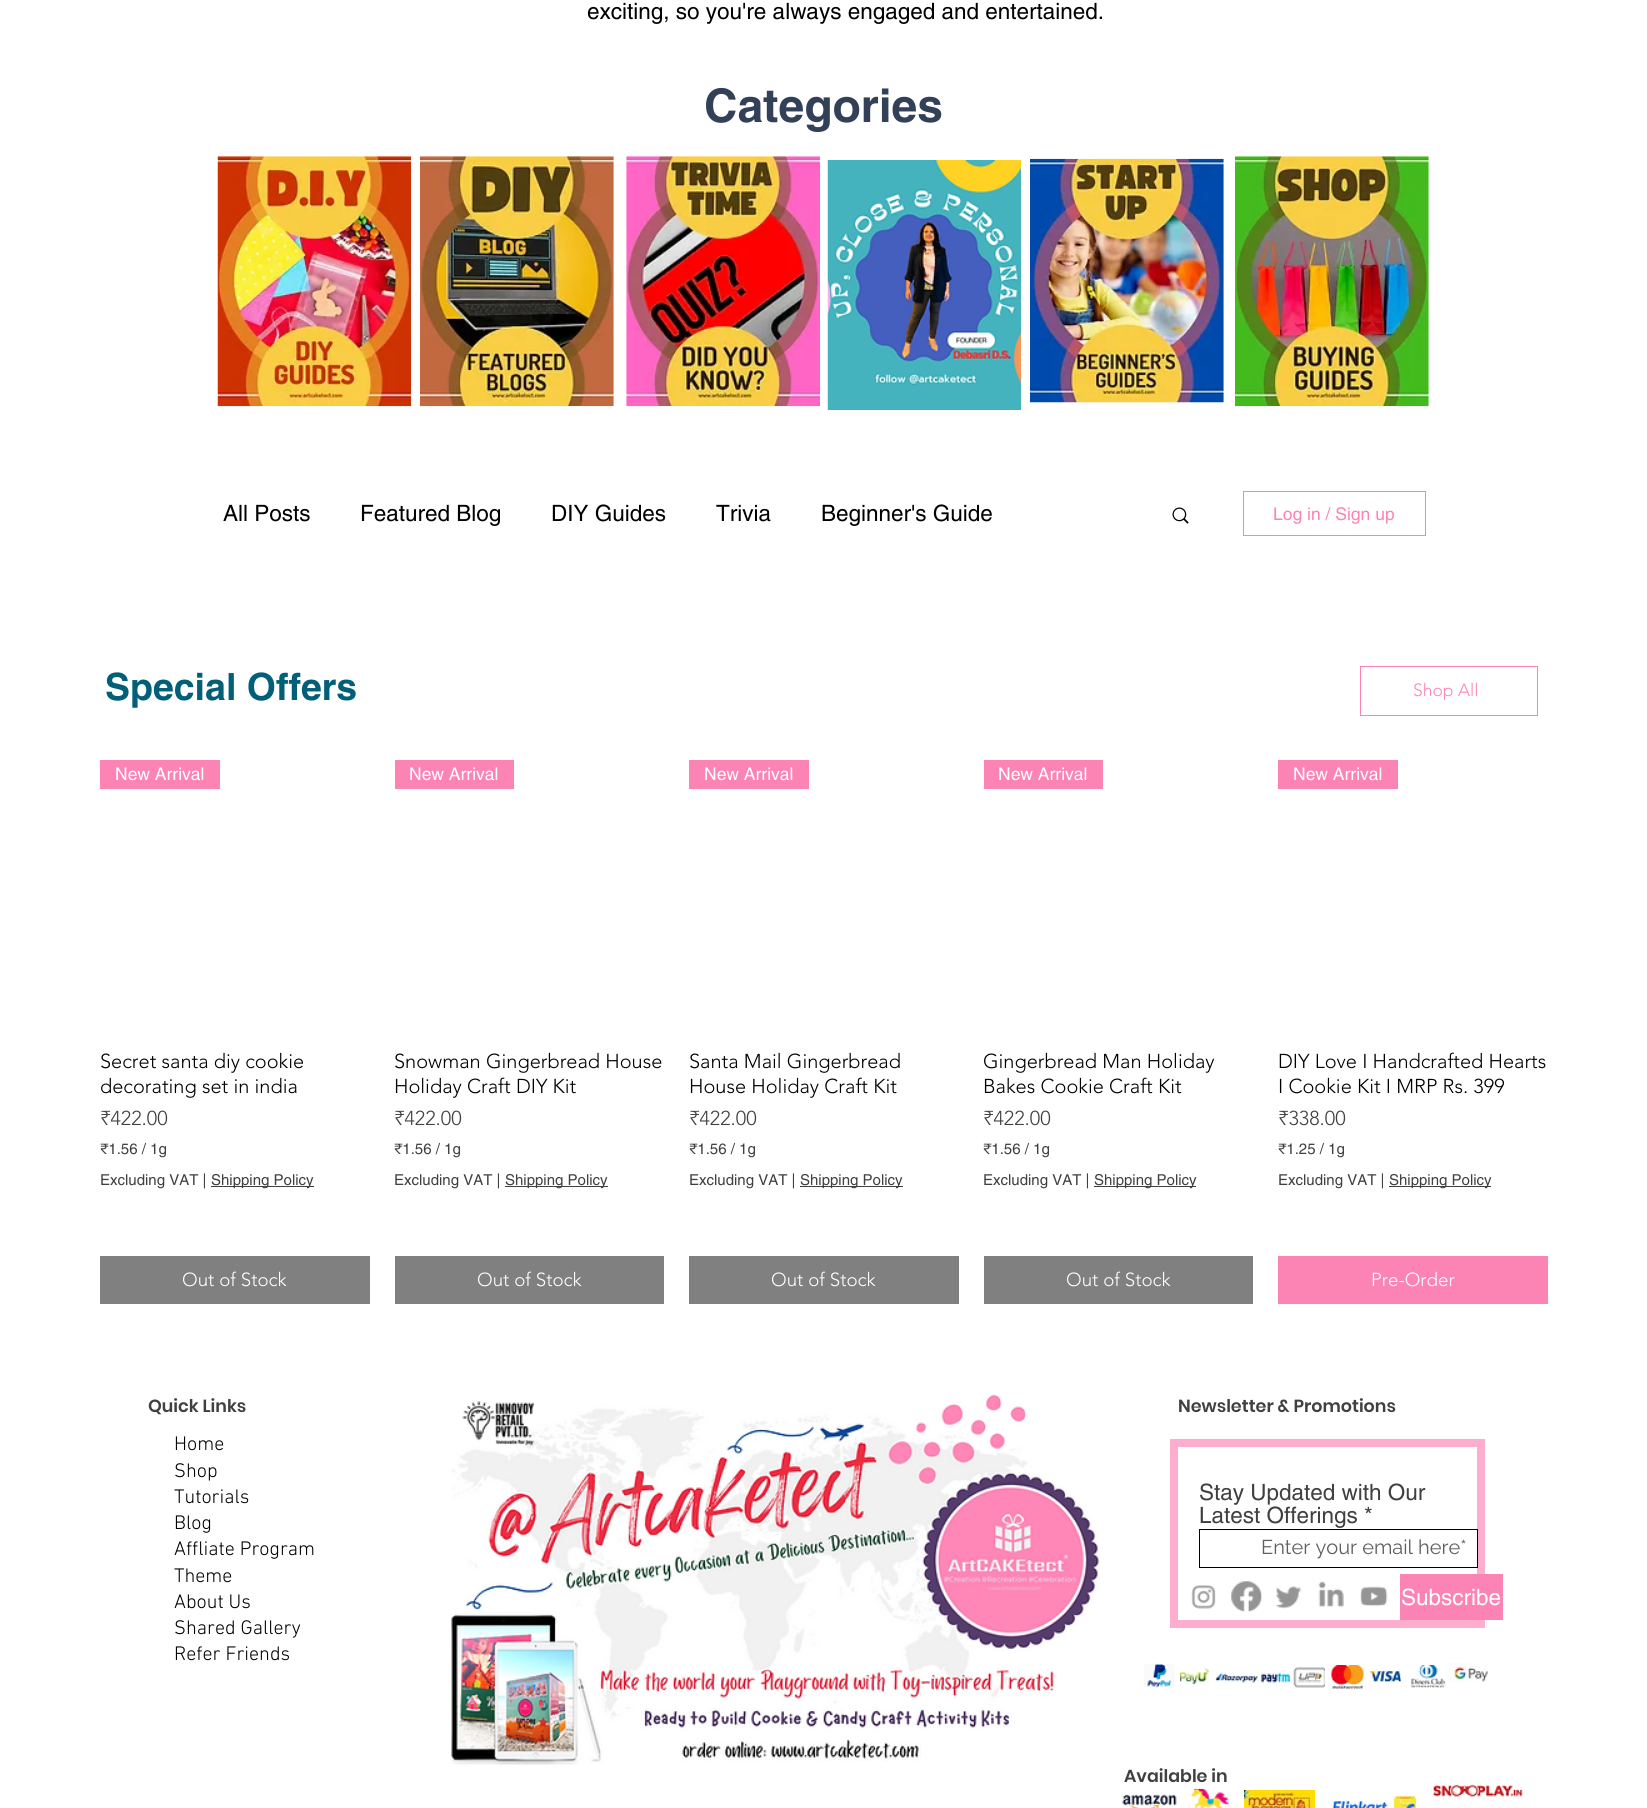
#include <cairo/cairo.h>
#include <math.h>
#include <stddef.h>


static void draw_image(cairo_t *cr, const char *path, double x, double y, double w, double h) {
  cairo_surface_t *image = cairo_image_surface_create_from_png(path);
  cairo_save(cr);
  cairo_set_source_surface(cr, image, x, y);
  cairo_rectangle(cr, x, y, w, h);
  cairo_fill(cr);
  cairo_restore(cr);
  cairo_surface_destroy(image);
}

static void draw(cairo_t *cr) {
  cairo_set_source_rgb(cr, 1, 1, 1);
  cairo_paint(cr);
  draw_image(cr, "images/1.png", 217, 156, 195, 251);
  draw_image(cr, "images/2.png", 420, 156, 194, 251);
  draw_image(cr, "images/3.png", 626, 156, 194, 251);
  draw_image(cr, "images/4.png", 827, 160, 195, 250);
  draw_image(cr, "images/5.png", 1030, 158, 194, 245);
  draw_image(cr, "images/6.png", 1235, 156, 194, 251);
  draw_image(cr, "images/7.png", 1172, 507, 17, 17);
  cairo_rectangle(cr, 1243.5, 491.5, 182, 44);
  cairo_set_source_rgb(cr, 252 / 255.0, 132 / 255.0, 180 / 255.0);
  cairo_set_line_width(cr, 1);
  cairo_stroke(cr);
  cairo_rectangle(cr, 1360.5, 666.5, 177, 49);
  cairo_stroke(cr);
  cairo_rectangle(cr, 100, 760, 120, 29);
  cairo_fill(cr);
  cairo_set_source_rgb(cr, 64 / 255.0, 64 / 255.0, 64 / 255.0);
  cairo_rectangle(cr, 211, 1186, 103, 1);
  cairo_fill(cr);
  cairo_set_source_rgb(cr, 128 / 255.0, 128 / 255.0, 128 / 255.0);
  cairo_rectangle(cr, 100, 1256, 270, 48);
  cairo_fill(cr);
  cairo_set_source_rgb(cr, 252 / 255.0, 132 / 255.0, 180 / 255.0);
  cairo_rectangle(cr, 395, 760, 119, 29);
  cairo_fill(cr);
  cairo_set_source_rgb(cr, 64 / 255.0, 64 / 255.0, 64 / 255.0);
  cairo_rectangle(cr, 505, 1186, 103, 1);
  cairo_fill(cr);
  cairo_set_source_rgb(cr, 128 / 255.0, 128 / 255.0, 128 / 255.0);
  cairo_rectangle(cr, 395, 1256, 269, 48);
  cairo_fill(cr);
  cairo_set_source_rgb(cr, 252 / 255.0, 132 / 255.0, 180 / 255.0);
  cairo_rectangle(cr, 689, 760, 120, 29);
  cairo_fill(cr);
  cairo_set_source_rgb(cr, 64 / 255.0, 64 / 255.0, 64 / 255.0);
  cairo_rectangle(cr, 800, 1186, 103, 1);
  cairo_fill(cr);
  cairo_set_source_rgb(cr, 128 / 255.0, 128 / 255.0, 128 / 255.0);
  cairo_rectangle(cr, 689, 1256, 270, 48);
  cairo_fill(cr);
  cairo_set_source_rgb(cr, 252 / 255.0, 132 / 255.0, 180 / 255.0);
  cairo_rectangle(cr, 984, 760, 119, 29);
  cairo_fill(cr);
  cairo_set_source_rgb(cr, 64 / 255.0, 64 / 255.0, 64 / 255.0);
  cairo_rectangle(cr, 1094, 1186, 102, 1);
  cairo_fill(cr);
  cairo_set_source_rgb(cr, 128 / 255.0, 128 / 255.0, 128 / 255.0);
  cairo_rectangle(cr, 984, 1256, 269, 48);
  cairo_fill(cr);
  cairo_set_source_rgb(cr, 252 / 255.0, 132 / 255.0, 180 / 255.0);
  cairo_rectangle(cr, 1278, 760, 120, 29);
  cairo_fill(cr);
  cairo_set_source_rgb(cr, 64 / 255.0, 64 / 255.0, 64 / 255.0);
  cairo_rectangle(cr, 1389, 1186, 102, 1);
  cairo_fill(cr);
  cairo_set_source_rgb(cr, 252 / 255.0, 132 / 255.0, 180 / 255.0);
  cairo_rectangle(cr, 1278, 1256, 270, 48);
  cairo_fill(cr);
  draw_image(cr, "images/8.png", 451, 1394, 648, 371);
  draw_image(cr, "images/9.png", 462, 1401, 72, 45);
  cairo_rectangle(cr, 1174, 1443, 307, 181);
  cairo_set_source_rgb(cr, 253 / 255.0, 173 / 255.0, 205 / 255.0);
  cairo_set_line_width(cr, 8);
  cairo_stroke(cr);
  cairo_rectangle(cr, 1199.5, 1529.5, 278, 38);
  cairo_set_source_rgb(cr, 0, 0, 0);
  cairo_set_line_width(cr, 1);
  cairo_stroke(cr);
  draw_image(cr, "images/10.png", 1191, 1585, 25, 24);
  draw_image(cr, "images/11.png", 1231, 1581, 31, 31);
  draw_image(cr, "images/12.png", 1276, 1586, 26, 23);
  draw_image(cr, "images/13.png", 1318, 1581, 26, 26);
  draw_image(cr, "images/14.png", 1360, 1586, 28, 21);
  cairo_set_source_rgb(cr, 252 / 255.0, 132 / 255.0, 180 / 255.0);
  cairo_rectangle(cr, 1400, 1574, 103, 46);
  cairo_fill(cr);
  draw_image(cr, "images/15.png", 1144, 1663, 31, 25);
  draw_image(cr, "images/16.png", 1180, 1667, 29, 18);
  draw_image(cr, "images/17.png", 1215, 1672, 43, 11);
  draw_image(cr, "images/18.png", 1257, 1672, 34, 11);
  draw_image(cr, "images/19.png", 1293, 1667, 32, 21);
  draw_image(cr, "images/20.png", 1331, 1665, 33, 24);
  draw_image(cr, "images/21.png", 1369, 1670, 33, 12);
  draw_image(cr, "images/22.png", 1411, 1665, 35, 23);
  draw_image(cr, "images/23.png", 1448, 1663, 40, 20);
  draw_image(cr, "images/24.png", 1122, 1794, 55, 14);
  draw_image(cr, "images/25.png", 1191, 1788, 39, 20);
  draw_image(cr, "images/26.png", 1244, 1790, 71, 18);
  draw_image(cr, "images/27.png", 1332, 1796, 85, 12);
  draw_image(cr, "images/28.png", 1433, 1784, 90, 13);
  cairo_select_font_face(cr, "helvetica", CAIRO_FONT_SLANT_NORMAL, CAIRO_FONT_WEIGHT_NORMAL);
  cairo_set_font_size(cr, 22.5);
  cairo_set_source_rgb(cr, 0, 0, 0);
  cairo_move_to(cr, 587, 19);
  cairo_show_text(cr, "exciting, so you're always engaged and entertained.");
  cairo_select_font_face(cr, "helvetica", CAIRO_FONT_SLANT_NORMAL, CAIRO_FONT_WEIGHT_BOLD);
  cairo_set_font_size(cr, 46.25);
  cairo_set_source_rgb(cr, 50 / 255.0, 65 / 255.0, 88 / 255.0);
  cairo_move_to(cr, 704, 122);
  cairo_show_text(cr, "Categories");
  cairo_select_font_face(cr, "helvetica", CAIRO_FONT_SLANT_NORMAL, CAIRO_FONT_WEIGHT_NORMAL);
  cairo_set_font_size(cr, 22.5);
  cairo_set_source_rgb(cr, 0, 0, 0);
  cairo_move_to(cr, 223, 521);
  cairo_show_text(cr, "All Posts");
  cairo_move_to(cr, 360, 521);
  cairo_show_text(cr, "Featured Blog");
  cairo_move_to(cr, 551, 521);
  cairo_show_text(cr, "DIY Guides");
  cairo_move_to(cr, 716, 521);
  cairo_show_text(cr, "Trivia");
  cairo_move_to(cr, 821, 521);
  cairo_show_text(cr, "Beginner's Guide");
  cairo_set_font_size(cr, 17.5);
  cairo_set_source_rgb(cr, 252 / 255.0, 132 / 255.0, 180 / 255.0);
  cairo_move_to(cr, 1273, 520);
  cairo_show_text(cr, "Log in / Sign up");
  cairo_select_font_face(cr, "helvetica", CAIRO_FONT_SLANT_NORMAL, CAIRO_FONT_WEIGHT_BOLD);
  cairo_set_font_size(cr, 37.5);
  cairo_set_source_rgb(cr, 1 / 255.0, 95 / 255.0, 120 / 255.0);
  cairo_move_to(cr, 105, 700);
  cairo_show_text(cr, "Special Offers");
  cairo_select_font_face(cr, "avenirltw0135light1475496 Light", CAIRO_FONT_SLANT_NORMAL, CAIRO_FONT_WEIGHT_NORMAL);
  cairo_set_font_size(cr, 17.5);
  cairo_set_source_rgb(cr, 252 / 255.0, 132 / 255.0, 180 / 255.0);
  cairo_move_to(cr, 1413, 696);
  cairo_show_text(cr, "Shop All");
  cairo_select_font_face(cr, "helvetica", CAIRO_FONT_SLANT_NORMAL, CAIRO_FONT_WEIGHT_NORMAL);
  cairo_set_source_rgb(cr, 1, 1, 1);
  cairo_move_to(cr, 115, 780);
  cairo_show_text(cr, "New Arrival");
  cairo_select_font_face(cr, "avenirltw0135light1475496 Light", CAIRO_FONT_SLANT_NORMAL, CAIRO_FONT_WEIGHT_NORMAL);
  cairo_set_font_size(cr, 20);
  cairo_set_source_rgb(cr, 0, 0, 0);
  cairo_move_to(cr, 100, 1068);
  cairo_show_text(cr, "Secret santa diy cookie");
  cairo_move_to(cr, 100, 1093);
  cairo_show_text(cr, "decorating set in india");
  cairo_set_source_rgb(cr, 64 / 255.0, 64 / 255.0, 64 / 255.0);
  cairo_move_to(cr, 100, 1125);
  cairo_show_text(cr, "₹422.00");
  cairo_select_font_face(cr, "helvetica", CAIRO_FONT_SLANT_NORMAL, CAIRO_FONT_WEIGHT_NORMAL);
  cairo_set_font_size(cr, 15);
  cairo_move_to(cr, 100, 1154);
  cairo_show_text(cr, "₹1.56 / 1g");
  cairo_move_to(cr, 100, 1185);
  cairo_show_text(cr, "Excluding VAT |");
  cairo_move_to(cr, 211, 1185);
  cairo_show_text(cr, "Shipping Policy");
  cairo_select_font_face(cr, "avenirltw0135light1475496 Light", CAIRO_FONT_SLANT_NORMAL, CAIRO_FONT_WEIGHT_NORMAL);
  cairo_set_font_size(cr, 18.75);
  cairo_set_source_rgb(cr, 1, 1, 1);
  cairo_move_to(cr, 182, 1286);
  cairo_show_text(cr, "Out of Stock");
  cairo_select_font_face(cr, "helvetica", CAIRO_FONT_SLANT_NORMAL, CAIRO_FONT_WEIGHT_NORMAL);
  cairo_set_font_size(cr, 17.5);
  cairo_move_to(cr, 409, 780);
  cairo_show_text(cr, "New Arrival");
  cairo_select_font_face(cr, "avenirltw0135light1475496 Light", CAIRO_FONT_SLANT_NORMAL, CAIRO_FONT_WEIGHT_NORMAL);
  cairo_set_font_size(cr, 20);
  cairo_set_source_rgb(cr, 0, 0, 0);
  cairo_move_to(cr, 394, 1068);
  cairo_show_text(cr, "Snowman Gingerbread House");
  cairo_move_to(cr, 394, 1093);
  cairo_show_text(cr, "Holiday Craft DIY Kit");
  cairo_set_source_rgb(cr, 64 / 255.0, 64 / 255.0, 64 / 255.0);
  cairo_move_to(cr, 394, 1125);
  cairo_show_text(cr, "₹422.00");
  cairo_select_font_face(cr, "helvetica", CAIRO_FONT_SLANT_NORMAL, CAIRO_FONT_WEIGHT_NORMAL);
  cairo_set_font_size(cr, 15);
  cairo_move_to(cr, 394, 1154);
  cairo_show_text(cr, "₹1.56 / 1g");
  cairo_move_to(cr, 394, 1185);
  cairo_show_text(cr, "Excluding VAT |");
  cairo_move_to(cr, 505, 1185);
  cairo_show_text(cr, "Shipping Policy");
  cairo_select_font_face(cr, "avenirltw0135light1475496 Light", CAIRO_FONT_SLANT_NORMAL, CAIRO_FONT_WEIGHT_NORMAL);
  cairo_set_font_size(cr, 18.75);
  cairo_set_source_rgb(cr, 1, 1, 1);
  cairo_move_to(cr, 477, 1286);
  cairo_show_text(cr, "Out of Stock");
  cairo_select_font_face(cr, "helvetica", CAIRO_FONT_SLANT_NORMAL, CAIRO_FONT_WEIGHT_NORMAL);
  cairo_set_font_size(cr, 17.5);
  cairo_move_to(cr, 704, 780);
  cairo_show_text(cr, "New Arrival");
  cairo_select_font_face(cr, "avenirltw0135light1475496 Light", CAIRO_FONT_SLANT_NORMAL, CAIRO_FONT_WEIGHT_NORMAL);
  cairo_set_font_size(cr, 20);
  cairo_set_source_rgb(cr, 0, 0, 0);
  cairo_move_to(cr, 689, 1068);
  cairo_show_text(cr, "Santa Mail Gingerbread");
  cairo_move_to(cr, 689, 1093);
  cairo_show_text(cr, "House Holiday Craft Kit");
  cairo_set_source_rgb(cr, 64 / 255.0, 64 / 255.0, 64 / 255.0);
  cairo_move_to(cr, 689, 1125);
  cairo_show_text(cr, "₹422.00");
  cairo_select_font_face(cr, "helvetica", CAIRO_FONT_SLANT_NORMAL, CAIRO_FONT_WEIGHT_NORMAL);
  cairo_set_font_size(cr, 15);
  cairo_move_to(cr, 689, 1154);
  cairo_show_text(cr, "₹1.56 / 1g");
  cairo_move_to(cr, 689, 1185);
  cairo_show_text(cr, "Excluding VAT |");
  cairo_move_to(cr, 800, 1185);
  cairo_show_text(cr, "Shipping Policy");
  cairo_select_font_face(cr, "avenirltw0135light1475496 Light", CAIRO_FONT_SLANT_NORMAL, CAIRO_FONT_WEIGHT_NORMAL);
  cairo_set_font_size(cr, 18.75);
  cairo_set_source_rgb(cr, 1, 1, 1);
  cairo_move_to(cr, 771, 1286);
  cairo_show_text(cr, "Out of Stock");
  cairo_select_font_face(cr, "helvetica", CAIRO_FONT_SLANT_NORMAL, CAIRO_FONT_WEIGHT_NORMAL);
  cairo_set_font_size(cr, 17.5);
  cairo_move_to(cr, 998, 780);
  cairo_show_text(cr, "New Arrival");
  cairo_select_font_face(cr, "avenirltw0135light1475496 Light", CAIRO_FONT_SLANT_NORMAL, CAIRO_FONT_WEIGHT_NORMAL);
  cairo_set_font_size(cr, 20);
  cairo_set_source_rgb(cr, 0, 0, 0);
  cairo_move_to(cr, 983, 1068);
  cairo_show_text(cr, "Gingerbread Man Holiday");
  cairo_move_to(cr, 983, 1093);
  cairo_show_text(cr, "Bakes Cookie Craft Kit");
  cairo_set_source_rgb(cr, 64 / 255.0, 64 / 255.0, 64 / 255.0);
  cairo_move_to(cr, 983, 1125);
  cairo_show_text(cr, "₹422.00");
  cairo_select_font_face(cr, "helvetica", CAIRO_FONT_SLANT_NORMAL, CAIRO_FONT_WEIGHT_NORMAL);
  cairo_set_font_size(cr, 15);
  cairo_move_to(cr, 983, 1154);
  cairo_show_text(cr, "₹1.56 / 1g");
  cairo_move_to(cr, 983, 1185);
  cairo_show_text(cr, "Excluding VAT |");
  cairo_move_to(cr, 1094, 1185);
  cairo_show_text(cr, "Shipping Policy");
  cairo_select_font_face(cr, "avenirltw0135light1475496 Light", CAIRO_FONT_SLANT_NORMAL, CAIRO_FONT_WEIGHT_NORMAL);
  cairo_set_font_size(cr, 18.75);
  cairo_set_source_rgb(cr, 1, 1, 1);
  cairo_move_to(cr, 1066, 1286);
  cairo_show_text(cr, "Out of Stock");
  cairo_select_font_face(cr, "helvetica", CAIRO_FONT_SLANT_NORMAL, CAIRO_FONT_WEIGHT_NORMAL);
  cairo_set_font_size(cr, 17.5);
  cairo_move_to(cr, 1293, 780);
  cairo_show_text(cr, "New Arrival");
  cairo_select_font_face(cr, "avenirltw0135light1475496 Light", CAIRO_FONT_SLANT_NORMAL, CAIRO_FONT_WEIGHT_NORMAL);
  cairo_set_font_size(cr, 20);
  cairo_set_source_rgb(cr, 0, 0, 0);
  cairo_move_to(cr, 1278, 1068);
  cairo_show_text(cr, "DIY Love I Handcrafted Hearts");
  cairo_move_to(cr, 1278, 1093);
  cairo_show_text(cr, "I Cookie Kit I MRP Rs. 399");
  cairo_set_source_rgb(cr, 64 / 255.0, 64 / 255.0, 64 / 255.0);
  cairo_move_to(cr, 1278, 1125);
  cairo_show_text(cr, "₹338.00");
  cairo_select_font_face(cr, "helvetica", CAIRO_FONT_SLANT_NORMAL, CAIRO_FONT_WEIGHT_NORMAL);
  cairo_set_font_size(cr, 15);
  cairo_move_to(cr, 1278, 1154);
  cairo_show_text(cr, "₹1.25 / 1g");
  cairo_move_to(cr, 1278, 1185);
  cairo_show_text(cr, "Excluding VAT |");
  cairo_move_to(cr, 1389, 1185);
  cairo_show_text(cr, "Shipping Policy");
  cairo_select_font_face(cr, "avenirltw0135light1475496 Light", CAIRO_FONT_SLANT_NORMAL, CAIRO_FONT_WEIGHT_NORMAL);
  cairo_set_font_size(cr, 18.75);
  cairo_set_source_rgb(cr, 1, 1, 1);
  cairo_move_to(cr, 1371, 1286);
  cairo_show_text(cr, "Pre-Order");
  cairo_select_font_face(cr, "Poppins SemiBold", CAIRO_FONT_SLANT_NORMAL, CAIRO_FONT_WEIGHT_NORMAL);
  cairo_set_font_size(cr, 17.5);
  cairo_set_source_rgb(cr, 64 / 255.0, 64 / 255.0, 64 / 255.0);
  cairo_move_to(cr, 148, 1412);
  cairo_show_text(cr, "Quick Links");
  cairo_move_to(cr, 1178, 1412);
  cairo_show_text(cr, "Newsletter & Promotions");
  cairo_select_font_face(cr, "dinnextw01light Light", CAIRO_FONT_SLANT_NORMAL, CAIRO_FONT_WEIGHT_NORMAL);
  cairo_set_font_size(cr, 20);
  cairo_set_source_rgb(cr, 0, 0, 0);
  cairo_move_to(cr, 174, 1450);
  cairo_show_text(cr, "Home");
  cairo_move_to(cr, 174, 1477);
  cairo_show_text(cr, "Shop");
  cairo_move_to(cr, 174, 1503);
  cairo_show_text(cr, "Tutorials");
  cairo_move_to(cr, 174, 1529);
  cairo_show_text(cr, "Blog");
  cairo_move_to(cr, 174, 1555);
  cairo_show_text(cr, "Affliate Program");
  cairo_move_to(cr, 174, 1582);
  cairo_show_text(cr, "Theme");
  cairo_move_to(cr, 174, 1608);
  cairo_show_text(cr, "About Us");
  cairo_move_to(cr, 174, 1634);
  cairo_show_text(cr, "Shared Gallery");
  cairo_move_to(cr, 174, 1660);
  cairo_show_text(cr, "Refer Friends");
  cairo_select_font_face(cr, "helvetica", CAIRO_FONT_SLANT_NORMAL, CAIRO_FONT_WEIGHT_NORMAL);
  cairo_set_font_size(cr, 22.5);
  cairo_set_source_rgb(cr, 64 / 255.0, 64 / 255.0, 64 / 255.0);
  cairo_move_to(cr, 1199, 1500);
  cairo_show_text(cr, "Stay Updated with Our");
  cairo_move_to(cr, 1199, 1523);
  cairo_show_text(cr, "Latest Offerings *");
  cairo_select_font_face(cr, "Raleway", CAIRO_FONT_SLANT_NORMAL, CAIRO_FONT_WEIGHT_NORMAL);
  cairo_set_font_size(cr, 20);
  cairo_set_source_rgb(cr, 96 / 255.0, 94 / 255.0, 94 / 255.0);
  cairo_move_to(cr, 1261, 1554);
  cairo_show_text(cr, "Enter your email here*");
  cairo_select_font_face(cr, "helvetica", CAIRO_FONT_SLANT_NORMAL, CAIRO_FONT_WEIGHT_NORMAL);
  cairo_set_font_size(cr, 22.5);
  cairo_set_source_rgb(cr, 1, 1, 1);
  cairo_move_to(cr, 1401, 1605);
  cairo_show_text(cr, "Subscribe");
  cairo_select_font_face(cr, "Poppins SemiBold", CAIRO_FONT_SLANT_NORMAL, CAIRO_FONT_WEIGHT_NORMAL);
  cairo_set_font_size(cr, 17.5);
  cairo_set_source_rgb(cr, 64 / 255.0, 64 / 255.0, 64 / 255.0);
  cairo_move_to(cr, 1124, 1782);
  cairo_show_text(cr, "Available in");
}

int main(void) {
  cairo_surface_t *surface = cairo_image_surface_create(CAIRO_FORMAT_RGB24, 1647, 1808);
  cairo_t *cr = cairo_create(surface);
  cairo_font_options_t *options = cairo_font_options_create();
  cairo_font_options_set_hint_metrics(options, CAIRO_HINT_METRICS_OFF);
  cairo_font_options_set_hint_style(options, CAIRO_HINT_STYLE_NONE);
  cairo_set_font_options(cr, options);
  cairo_set_miter_limit(cr, 4);
  draw(cr);
  cairo_surface_write_to_png(surface, "out.png");
  cairo_font_options_destroy(options);
  cairo_destroy(cr);
  cairo_surface_destroy(surface);
  return 0;
}
